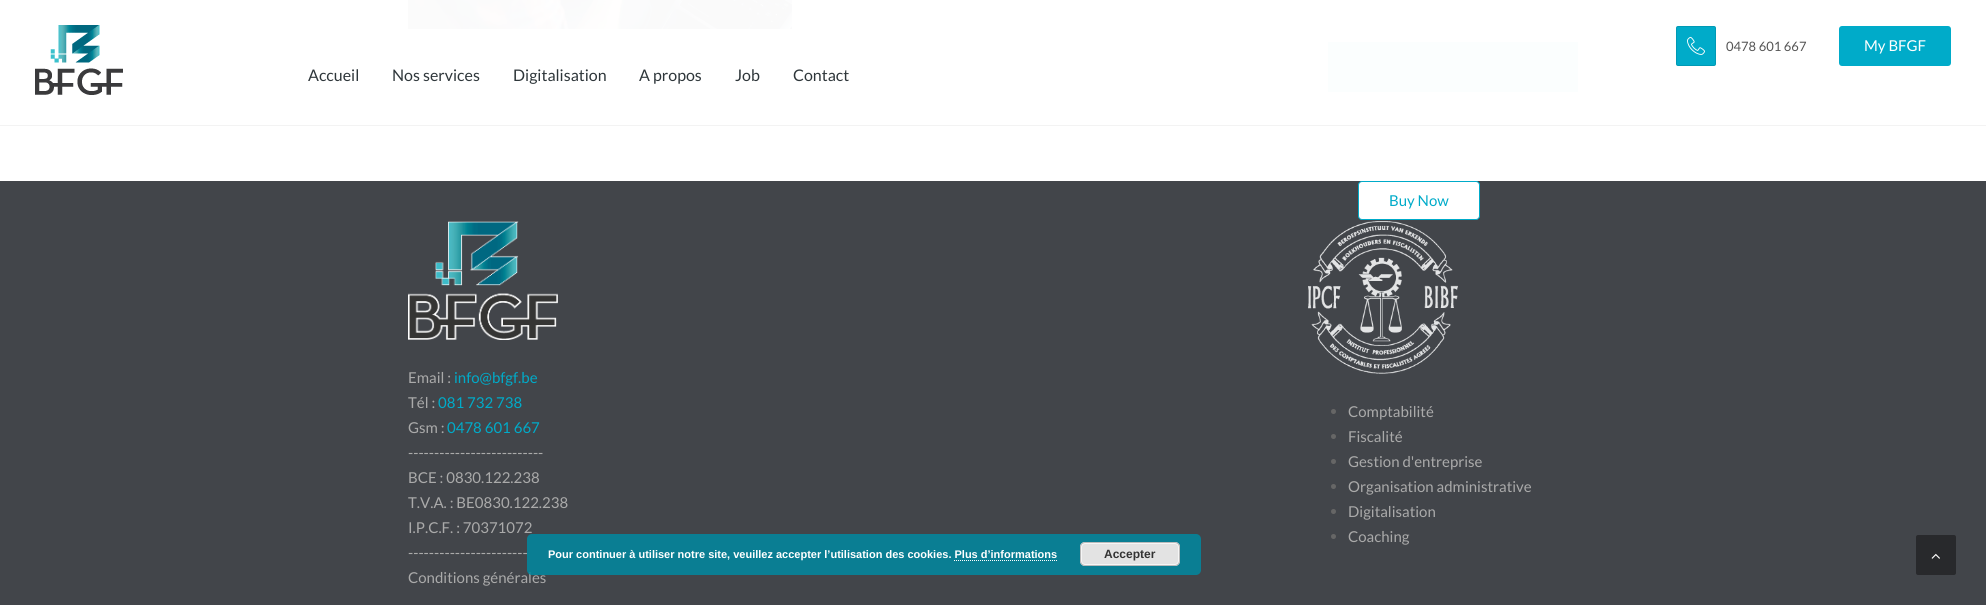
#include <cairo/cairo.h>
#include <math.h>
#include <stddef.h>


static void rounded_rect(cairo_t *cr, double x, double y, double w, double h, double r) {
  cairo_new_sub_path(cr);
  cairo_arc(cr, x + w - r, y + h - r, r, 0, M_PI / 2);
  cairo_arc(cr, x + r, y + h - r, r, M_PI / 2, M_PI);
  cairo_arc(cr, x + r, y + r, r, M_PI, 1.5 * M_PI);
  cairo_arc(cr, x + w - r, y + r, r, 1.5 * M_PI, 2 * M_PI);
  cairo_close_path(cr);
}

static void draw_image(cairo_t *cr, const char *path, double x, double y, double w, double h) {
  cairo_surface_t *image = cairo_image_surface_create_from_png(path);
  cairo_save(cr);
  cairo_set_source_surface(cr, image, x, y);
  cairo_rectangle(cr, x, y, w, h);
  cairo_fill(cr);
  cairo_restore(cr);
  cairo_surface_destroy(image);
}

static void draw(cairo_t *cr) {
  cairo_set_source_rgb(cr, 1, 1, 1);
  cairo_paint(cr);
  cairo_set_source_rgb(cr, 235 / 255.0, 235 / 255.0, 235 / 255.0);
  cairo_rectangle(cr, 1292, 0, 1, 54);
  cairo_fill(cr);
  draw_image(cr, "images/3.png", 408, 0, 384, 29);
  cairo_set_source_rgb(cr, 26 / 255.0, 179 / 255.0, 206 / 255.0);
  cairo_rectangle(cr, 1328, 42, 250, 50);
  cairo_fill(cr);
  cairo_set_source_rgba(cr, 1, 1, 1, 0.98);
  cairo_rectangle(cr, 408, 0, 1170, 92);
  cairo_fill(cr);
  cairo_set_source_rgba(cr, 0, 0, 0, 0.05);
  cairo_rectangle(cr, 0, 125, 1986, 1);
  cairo_fill(cr);
  draw_image(cr, "images/1.png", 35, 25, 88, 70);
  cairo_set_source_rgb(cr, 0, 171 / 255.0, 201 / 255.0);
  rounded_rect(cr, 1676, 26, 40, 40, 2);
  cairo_fill(cr);
  rounded_rect(cr, 1676.5, 26.5, 39, 39, 1.5);
  cairo_set_source_rgba(cr, 0, 0, 0, 0.1);
  cairo_set_line_width(cr, 1);
  cairo_stroke(cr);
  draw_image(cr, "images/2.png", 1687, 36, 18, 19);
  cairo_set_source_rgb(cr, 0, 171 / 255.0, 201 / 255.0);
  rounded_rect(cr, 1839, 26, 112, 40, 3);
  cairo_fill(cr);
  cairo_set_source_rgb(cr, 66 / 255.0, 69 / 255.0, 74 / 255.0);
  cairo_rectangle(cr, 0, 181, 1986, 424);
  cairo_fill(cr);
  cairo_set_source_rgb(cr, 1, 1, 1);
  rounded_rect(cr, 1358.5, 181.5, 121, 38, 3.5);
  cairo_fill_preserve(cr);
  cairo_set_source_rgb(cr, 0, 171 / 255.0, 201 / 255.0);
  cairo_stroke(cr);
  draw_image(cr, "images/4.png", 408, 221, 150, 119);
  draw_image(cr, "images/5.png", 1308, 221, 150, 153);
  cairo_set_source_rgb(cr, 102 / 255.0, 102 / 255.0, 102 / 255.0);
  cairo_arc(cr, 1333.5, 411.5, 2.5, 0, 2 * M_PI);
  cairo_fill(cr);
  cairo_arc(cr, 1333.5, 436.5, 2.5, 0, 2 * M_PI);
  cairo_fill(cr);
  cairo_arc(cr, 1333.5, 461.5, 2.5, 0, 2 * M_PI);
  cairo_fill(cr);
  cairo_arc(cr, 1333.5, 486.5, 2.5, 0, 2 * M_PI);
  cairo_fill(cr);
  cairo_arc(cr, 1333.5, 511.5, 2.5, 0, 2 * M_PI);
  cairo_fill(cr);
  cairo_arc(cr, 1333.5, 536.5, 2.5, 0, 2 * M_PI);
  cairo_fill(cr);
  cairo_set_source_rgb(cr, 40 / 255.0, 41 / 255.0, 44 / 255.0);
  rounded_rect(cr, 1916, 535, 40, 40, 2);
  cairo_fill(cr);
  draw_image(cr, "images/6.png", 1931, 553, 9, 6);
  cairo_select_font_face(cr, "Lato", CAIRO_FONT_SLANT_NORMAL, CAIRO_FONT_WEIGHT_NORMAL);
  cairo_set_font_size(cr, 13);
  cairo_set_source_rgb(cr, 85 / 255.0, 85 / 255.0, 85 / 255.0);
  cairo_move_to(cr, 1726, 51);
  cairo_show_text(cr, "0478 601 667");
  cairo_set_font_size(cr, 15);
  cairo_set_source_rgb(cr, 1, 1, 1);
  cairo_move_to(cr, 1864, 51);
  cairo_show_text(cr, "My BFGF");
  cairo_set_font_size(cr, 16);
  cairo_set_source_rgb(cr, 46 / 255.0, 54 / 255.0, 58 / 255.0);
  cairo_move_to(cr, 308, 81);
  cairo_show_text(cr, "Accueil");
  cairo_move_to(cr, 392, 81);
  cairo_show_text(cr, "Nos services");
  cairo_move_to(cr, 513, 81);
  cairo_show_text(cr, "Digitalisation");
  cairo_move_to(cr, 639, 81);
  cairo_show_text(cr, "A propos");
  cairo_move_to(cr, 735, 81);
  cairo_show_text(cr, "Job");
  cairo_move_to(cr, 793, 81);
  cairo_show_text(cr, "Contact");
  cairo_set_font_size(cr, 15);
  cairo_set_source_rgb(cr, 0, 171 / 255.0, 201 / 255.0);
  cairo_move_to(cr, 1389, 206);
  cairo_show_text(cr, "Buy Now");
  cairo_set_source_rgb(cr, 170 / 255.0, 170 / 255.0, 170 / 255.0);
  cairo_move_to(cr, 408, 383);
  cairo_show_text(cr, "Email :");
  cairo_set_source_rgb(cr, 0, 171 / 255.0, 201 / 255.0);
  cairo_move_to(cr, 454, 383);
  cairo_show_text(cr, "info@bfgf.be");
  cairo_set_source_rgb(cr, 170 / 255.0, 170 / 255.0, 170 / 255.0);
  cairo_move_to(cr, 408, 408);
  cairo_show_text(cr, "Tél :");
  cairo_set_source_rgb(cr, 0, 171 / 255.0, 201 / 255.0);
  cairo_move_to(cr, 438, 408);
  cairo_show_text(cr, "081 732 738");
  cairo_set_source_rgb(cr, 170 / 255.0, 170 / 255.0, 170 / 255.0);
  cairo_move_to(cr, 408, 433);
  cairo_show_text(cr, "Gsm :");
  cairo_set_source_rgb(cr, 0, 171 / 255.0, 201 / 255.0);
  cairo_move_to(cr, 447, 433);
  cairo_show_text(cr, "0478 601 667");
  cairo_set_source_rgb(cr, 170 / 255.0, 170 / 255.0, 170 / 255.0);
  cairo_move_to(cr, 408, 458);
  cairo_show_text(cr, "--------------------------");
  cairo_move_to(cr, 408, 483);
  cairo_show_text(cr, "BCE : 0830.122.238");
  cairo_move_to(cr, 408, 508);
  cairo_show_text(cr, "T.V.A. : BE0830.122.238");
  cairo_move_to(cr, 408, 533);
  cairo_show_text(cr, "I.P.C.F. : 70371072");
  cairo_move_to(cr, 408, 558);
  cairo_show_text(cr, "-----------------------");
  cairo_move_to(cr, 408, 583);
  cairo_show_text(cr, "Conditions générales");
  cairo_move_to(cr, 1348, 417);
  cairo_show_text(cr, "Comptabilité");
  cairo_move_to(cr, 1348, 442);
  cairo_show_text(cr, "Fiscalité");
  cairo_move_to(cr, 1348, 467);
  cairo_show_text(cr, "Gestion d'entreprise");
  cairo_move_to(cr, 1348, 492);
  cairo_show_text(cr, "Organisation administrative");
  cairo_move_to(cr, 1348, 517);
  cairo_show_text(cr, "Digitalisation");
  cairo_move_to(cr, 1348, 542);
  cairo_show_text(cr, "Coaching");
  cairo_set_source_rgba(cr, 0, 136 / 255.0, 160 / 255.0, 0.85);
  rounded_rect(cr, 527, 534, 674, 41, 5);
  cairo_fill(cr);
  cairo_select_font_face(cr, "Liberation Sans", CAIRO_FONT_SLANT_NORMAL, CAIRO_FONT_WEIGHT_BOLD);
  cairo_set_font_size(cr, 11);
  cairo_set_source_rgb(cr, 1, 1, 1);
  cairo_move_to(cr, 548, 558);
  cairo_show_text(cr, "Pour continuer à utiliser notre site, veuillez accepter l’utilisation des cookies. Plus d’informations");
  cairo_set_source_rgb(cr, 227 / 255.0, 227 / 255.0, 227 / 255.0);
  rounded_rect(cr, 1080, 542, 100, 24, 5);
  cairo_fill(cr);
  rounded_rect(cr, 1081.5, 543.5, 97, 21, 3.5);
  cairo_set_source_rgb(cr, 246 / 255.0, 246 / 255.0, 246 / 255.0);
  cairo_stroke(cr);
  rounded_rect(cr, 1080.5, 542.5, 99, 23, 4.5);
  cairo_set_source_rgb(cr, 187 / 255.0, 187 / 255.0, 187 / 255.0);
  cairo_stroke(cr);
  cairo_set_font_size(cr, 12);
  cairo_set_source_rgb(cr, 51 / 255.0, 51 / 255.0, 51 / 255.0);
  cairo_move_to(cr, 1104, 558);
  cairo_show_text(cr, "Accepter");
  cairo_new_path(cr);
  cairo_move_to(cr, 954, 560.5);
  cairo_line_to(cr, 1057, 560.5);
  cairo_set_source_rgb(cr, 1, 1, 1);
  cairo_set_dash(cr, (double[]){1, 1}, 2, 0);
  cairo_stroke(cr);
}

int main(void) {
  cairo_surface_t *surface = cairo_image_surface_create(CAIRO_FORMAT_RGB24, 1986, 605);
  cairo_t *cr = cairo_create(surface);
  cairo_font_options_t *options = cairo_font_options_create();
  cairo_font_options_set_hint_metrics(options, CAIRO_HINT_METRICS_OFF);
  cairo_font_options_set_hint_style(options, CAIRO_HINT_STYLE_NONE);
  cairo_set_font_options(cr, options);
  cairo_set_miter_limit(cr, 4);
  draw(cr);
  cairo_surface_write_to_png(surface, "out.png");
  cairo_font_options_destroy(options);
  cairo_destroy(cr);
  cairo_surface_destroy(surface);
  return 0;
}
